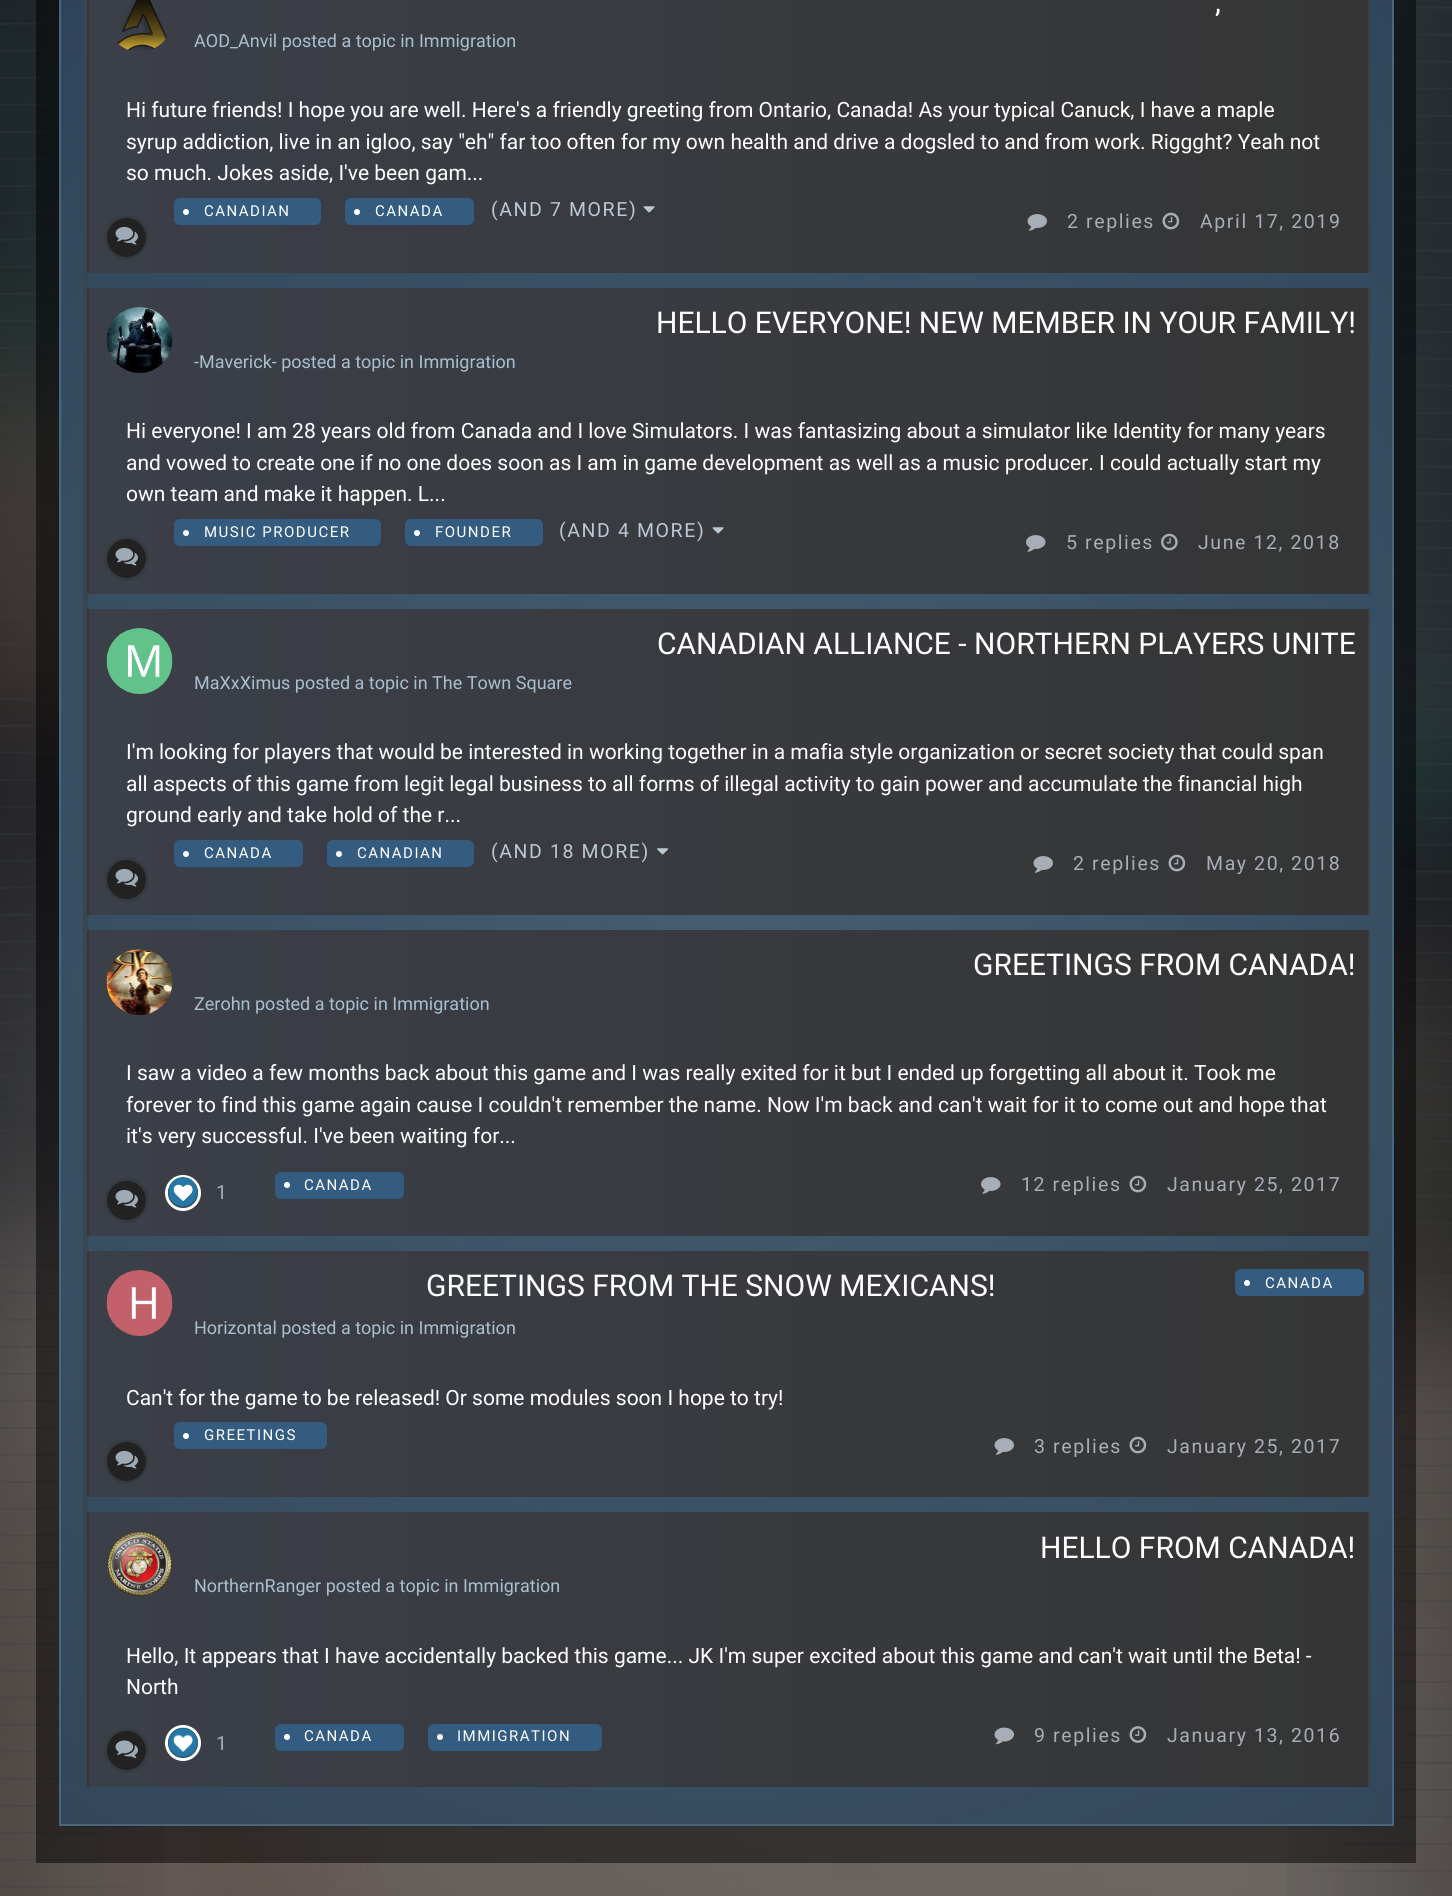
#include <cairo/cairo.h>
#include <math.h>
#include <stddef.h>


static void draw_spaced(cairo_t *cr, double x, double y, const char *s, double letter, double word) {
  cairo_move_to(cr, x, y);
  while (*s) {
    char ch[5] = {0};
    int n = 0;
    do ch[n++] = *s++; while ((*s & 0xC0) == 0x80);
    cairo_show_text(cr, ch);
    cairo_rel_move_to(cr, letter + word * (*ch == ' '), 0);
  }
}

static void rounded_rect(cairo_t *cr, double x, double y, double w, double h, double r) {
  cairo_new_sub_path(cr);
  cairo_arc(cr, x + w - r, y + h - r, r, 0, M_PI / 2);
  cairo_arc(cr, x + r, y + h - r, r, M_PI / 2, M_PI);
  cairo_arc(cr, x + r, y + r, r, M_PI, 1.5 * M_PI);
  cairo_arc(cr, x + w - r, y + r, r, 1.5 * M_PI, 2 * M_PI);
  cairo_close_path(cr);
}

static void draw_image(cairo_t *cr, const char *path, double x, double y, double w, double h) {
  cairo_surface_t *image = cairo_image_surface_create_from_png(path);
  cairo_save(cr);
  cairo_set_source_surface(cr, image, x, y);
  cairo_rectangle(cr, x, y, w, h);
  cairo_fill(cr);
  cairo_restore(cr);
  cairo_surface_destroy(image);
}

static void draw(cairo_t *cr) {
  cairo_pattern_t *gradient;
  cairo_set_source_rgb(cr, 1, 1, 1);
  cairo_paint(cr);
  draw_image(cr, "images/1.png", 0, 0, 1452, 1896);
  draw_image(cr, "images/2.png", 0, 0, 165, 1896);
  draw_image(cr, "images/27.png", 1287, 0, 165, 1896);
  cairo_set_source_rgba(cr, 0, 0, 0, 0.5);
  cairo_rectangle(cr, 36, 0, 1380, 1863);
  cairo_fill(cr);
  cairo_set_source_rgba(cr, 0, 0, 0, 0.1);
  cairo_new_path(cr);
  cairo_move_to(cr, 59, 1823);
  cairo_curve_to(cr, 60, 1825, 62, 1827, 64, 1827);
  cairo_line_to(cr, 1389, 1827);
  cairo_curve_to(cr, 1392, 1827, 1394, 1825, 1394, 1822);
  cairo_line_to(cr, 1394, -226);
  cairo_line_to(cr, 1393, -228);
  cairo_line_to(cr, 1394, 1821);
  cairo_curve_to(cr, 1394, 1823, 1391, 1826, 1389, 1826);
  cairo_line_to(cr, 63, 1826);
  cairo_curve_to(cr, 61, 1826, 60, 1825, 59, 1823);
  cairo_close_path(cr);
  cairo_fill(cr);
  cairo_set_source_rgba(cr, 0, 0, 0, 0.3);
  cairo_rectangle(cr, 61, 0, 1331, 1824);
  cairo_fill(cr);
  gradient = cairo_pattern_create_radial(726, 877, 0, 726, 877, 1158);
  cairo_pattern_add_color_stop_rgba(gradient, 0, 69 / 255.0, 94 / 255.0, 112 / 255.0, 1);
  cairo_pattern_add_color_stop_rgba(gradient, 1, 57 / 255.0, 85 / 255.0, 113 / 255.0, 0.75);
  cairo_set_source(cr, gradient);
  cairo_pattern_destroy(gradient);
  cairo_rectangle(cr, 61, 0, 1331, 1824);
  cairo_fill(cr);
  cairo_rectangle(cr, 60, -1, 1333, 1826);
  cairo_set_source_rgb(cr, 70 / 255.0, 103 / 255.0, 126 / 255.0);
  cairo_stroke(cr);
  cairo_set_source_rgb(cr, 56 / 255.0, 70 / 255.0, 81 / 255.0);
  cairo_rectangle(cr, 83, 0, 5, 1787);
  cairo_fill(cr);
  gradient = cairo_pattern_create_linear(-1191, 120, 89, 120);
  cairo_pattern_add_color_stop_rgba(gradient, 0, 59 / 255.0, 63 / 255.0, 72 / 255.0, 1);
  cairo_pattern_add_color_stop_rgba(gradient, 1, 53 / 255.0, 53 / 255.0, 53 / 255.0, 1);
  cairo_set_source(cr, gradient);
  cairo_pattern_destroy(gradient);
  cairo_new_path(cr);
  cairo_move_to(cr, 88.5, -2);
  cairo_line_to(cr, 89, -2);
  cairo_line_to(cr, 89, 273);
  cairo_line_to(cr, 88.5, 273);
  cairo_curve_to(cr, 87.5, 273, 87, 272.5, 87, 271.5);
  cairo_line_to(cr, 87, -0.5);
  cairo_curve_to(cr, 87, -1.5, 87.5, -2, 88.5, -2);
  cairo_close_path(cr);
  cairo_fill(cr);
  gradient = cairo_pattern_create_linear(89, 120, 1368, 120);
  cairo_pattern_add_color_stop_rgba(gradient, 0, 59 / 255.0, 63 / 255.0, 72 / 255.0, 1);
  cairo_pattern_add_color_stop_rgba(gradient, 1, 53 / 255.0, 53 / 255.0, 53 / 255.0, 1);
  cairo_set_source(cr, gradient);
  cairo_pattern_destroy(gradient);
  cairo_rectangle(cr, 89, 0, 1279, 273);
  cairo_fill(cr);
  gradient = cairo_pattern_create_linear(1368, 120, 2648, 120);
  cairo_pattern_add_color_stop_rgba(gradient, 0, 59 / 255.0, 63 / 255.0, 72 / 255.0, 1);
  cairo_pattern_add_color_stop_rgba(gradient, 1, 53 / 255.0, 53 / 255.0, 53 / 255.0, 1);
  cairo_set_source(cr, gradient);
  cairo_pattern_destroy(gradient);
  cairo_new_path(cr);
  cairo_move_to(cr, 1368, -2);
  cairo_line_to(cr, 1368.5, -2);
  cairo_curve_to(cr, 1369.5, -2, 1370, -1.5, 1370, -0.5);
  cairo_line_to(cr, 1370, 271.5);
  cairo_curve_to(cr, 1370, 272.5, 1369.5, 273, 1368.5, 273);
  cairo_line_to(cr, 1368, 273);
  cairo_close_path(cr);
  cairo_fill(cr);
  draw_image(cr, "images/3.png", 117, 0, 50, 51);
  cairo_set_source_rgb(cr, 34 / 255.0, 34 / 255.0, 34 / 255.0);
  cairo_arc(cr, 126.5, 237.5, 21, 0, 2 * M_PI);
  cairo_fill_preserve(cr);
  cairo_set_source_rgb(cr, 53 / 255.0, 60 / 255.0, 65 / 255.0);
  cairo_set_line_width(cr, 3);
  cairo_stroke(cr);
  draw_image(cr, "images/4.png", 115, 226, 23, 19);
  cairo_set_source_rgb(cr, 51 / 255.0, 92 / 255.0, 128 / 255.0);
  rounded_rect(cr, 174, 198, 147, 27, 6);
  cairo_fill(cr);
  cairo_set_source_rgb(cr, 1, 1, 1);
  cairo_arc(cr, 186, 212, 3, 0, 2 * M_PI);
  cairo_fill(cr);
  cairo_set_source_rgb(cr, 51 / 255.0, 92 / 255.0, 128 / 255.0);
  rounded_rect(cr, 345, 198, 129, 27, 6);
  cairo_fill(cr);
  cairo_set_source_rgb(cr, 1, 1, 1);
  cairo_arc(cr, 357, 212, 3, 0, 2 * M_PI);
  cairo_fill(cr);
  draw_image(cr, "images/5.png", 643, 206, 12, 7);
  draw_image(cr, "images/6.png", 1027, 214, 20, 17);
  draw_image(cr, "images/7.png", 1162, 212, 18, 18);
  gradient = cairo_pattern_create_linear(-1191, 441, 89, 441);
  cairo_pattern_add_color_stop_rgba(gradient, 0, 59 / 255.0, 63 / 255.0, 72 / 255.0, 1);
  cairo_pattern_add_color_stop_rgba(gradient, 1, 53 / 255.0, 53 / 255.0, 53 / 255.0, 1);
  cairo_set_source(cr, gradient);
  cairo_pattern_destroy(gradient);
  cairo_new_path(cr);
  cairo_move_to(cr, 88.5, 288);
  cairo_line_to(cr, 89, 288);
  cairo_line_to(cr, 89, 594);
  cairo_line_to(cr, 88.5, 594);
  cairo_curve_to(cr, 87.5, 594, 87, 593.5, 87, 592.5);
  cairo_line_to(cr, 87, 289.5);
  cairo_curve_to(cr, 87, 288.5, 87.5, 288, 88.5, 288);
  cairo_close_path(cr);
  cairo_fill(cr);
  gradient = cairo_pattern_create_linear(89, 441, 1368, 441);
  cairo_pattern_add_color_stop_rgba(gradient, 0, 59 / 255.0, 63 / 255.0, 72 / 255.0, 1);
  cairo_pattern_add_color_stop_rgba(gradient, 1, 53 / 255.0, 53 / 255.0, 53 / 255.0, 1);
  cairo_set_source(cr, gradient);
  cairo_pattern_destroy(gradient);
  cairo_rectangle(cr, 89, 288, 1279, 306);
  cairo_fill(cr);
  gradient = cairo_pattern_create_linear(1368, 441, 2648, 441);
  cairo_pattern_add_color_stop_rgba(gradient, 0, 59 / 255.0, 63 / 255.0, 72 / 255.0, 1);
  cairo_pattern_add_color_stop_rgba(gradient, 1, 53 / 255.0, 53 / 255.0, 53 / 255.0, 1);
  cairo_set_source(cr, gradient);
  cairo_pattern_destroy(gradient);
  cairo_new_path(cr);
  cairo_move_to(cr, 1368, 288);
  cairo_line_to(cr, 1368.5, 288);
  cairo_curve_to(cr, 1369.5, 288, 1370, 288.5, 1370, 289.5);
  cairo_line_to(cr, 1370, 592.5);
  cairo_curve_to(cr, 1370, 593.5, 1369.5, 594, 1368.5, 594);
  cairo_line_to(cr, 1368, 594);
  cairo_close_path(cr);
  cairo_fill(cr);
  draw_image(cr, "images/8.png", 106, 307, 67, 66);
  cairo_set_source_rgb(cr, 34 / 255.0, 34 / 255.0, 34 / 255.0);
  cairo_arc(cr, 126.5, 558.5, 21, 0, 2 * M_PI);
  cairo_fill_preserve(cr);
  cairo_set_source_rgb(cr, 53 / 255.0, 60 / 255.0, 65 / 255.0);
  cairo_stroke(cr);
  draw_image(cr, "images/4.png", 115, 547, 23, 19);
  cairo_set_source_rgb(cr, 51 / 255.0, 92 / 255.0, 128 / 255.0);
  rounded_rect(cr, 174, 519, 207, 27, 6);
  cairo_fill(cr);
  cairo_set_source_rgb(cr, 1, 1, 1);
  cairo_arc(cr, 186, 533, 3, 0, 2 * M_PI);
  cairo_fill(cr);
  cairo_set_source_rgb(cr, 51 / 255.0, 92 / 255.0, 128 / 255.0);
  rounded_rect(cr, 405, 519, 138, 27, 6);
  cairo_fill(cr);
  cairo_set_source_rgb(cr, 1, 1, 1);
  cairo_arc(cr, 417, 533, 3, 0, 2 * M_PI);
  cairo_fill(cr);
  draw_image(cr, "images/9.png", 712, 527, 12, 7);
  draw_image(cr, "images/10.png", 1026, 535, 20, 17);
  draw_image(cr, "images/11.png", 1161, 533, 17, 18);
  gradient = cairo_pattern_create_linear(-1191, 762, 89, 762);
  cairo_pattern_add_color_stop_rgba(gradient, 0, 59 / 255.0, 63 / 255.0, 72 / 255.0, 1);
  cairo_pattern_add_color_stop_rgba(gradient, 1, 53 / 255.0, 53 / 255.0, 53 / 255.0, 1);
  cairo_set_source(cr, gradient);
  cairo_pattern_destroy(gradient);
  cairo_new_path(cr);
  cairo_move_to(cr, 88.5, 609);
  cairo_line_to(cr, 89, 609);
  cairo_line_to(cr, 89, 915);
  cairo_line_to(cr, 88.5, 915);
  cairo_curve_to(cr, 87.5, 915, 87, 914.5, 87, 913.5);
  cairo_line_to(cr, 87, 610.5);
  cairo_curve_to(cr, 87, 609.5, 87.5, 609, 88.5, 609);
  cairo_close_path(cr);
  cairo_fill(cr);
  gradient = cairo_pattern_create_linear(89, 762, 1368, 762);
  cairo_pattern_add_color_stop_rgba(gradient, 0, 59 / 255.0, 63 / 255.0, 72 / 255.0, 1);
  cairo_pattern_add_color_stop_rgba(gradient, 1, 53 / 255.0, 53 / 255.0, 53 / 255.0, 1);
  cairo_set_source(cr, gradient);
  cairo_pattern_destroy(gradient);
  cairo_rectangle(cr, 89, 609, 1279, 306);
  cairo_fill(cr);
  gradient = cairo_pattern_create_linear(1368, 762, 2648, 762);
  cairo_pattern_add_color_stop_rgba(gradient, 0, 59 / 255.0, 63 / 255.0, 72 / 255.0, 1);
  cairo_pattern_add_color_stop_rgba(gradient, 1, 53 / 255.0, 53 / 255.0, 53 / 255.0, 1);
  cairo_set_source(cr, gradient);
  cairo_pattern_destroy(gradient);
  cairo_new_path(cr);
  cairo_move_to(cr, 1368, 609);
  cairo_line_to(cr, 1368.5, 609);
  cairo_curve_to(cr, 1369.5, 609, 1370, 609.5, 1370, 610.5);
  cairo_line_to(cr, 1370, 913.5);
  cairo_curve_to(cr, 1370, 914.5, 1369.5, 915, 1368.5, 915);
  cairo_line_to(cr, 1368, 915);
  cairo_close_path(cr);
  cairo_fill(cr);
  draw_image(cr, "images/12.png", 106, 628, 67, 66);
  cairo_set_source_rgb(cr, 34 / 255.0, 34 / 255.0, 34 / 255.0);
  cairo_arc(cr, 126.5, 879.5, 21, 0, 2 * M_PI);
  cairo_fill_preserve(cr);
  cairo_set_source_rgb(cr, 53 / 255.0, 60 / 255.0, 65 / 255.0);
  cairo_stroke(cr);
  draw_image(cr, "images/4.png", 115, 868, 23, 19);
  cairo_set_source_rgb(cr, 51 / 255.0, 92 / 255.0, 128 / 255.0);
  rounded_rect(cr, 174, 840, 129, 27, 6);
  cairo_fill(cr);
  cairo_set_source_rgb(cr, 1, 1, 1);
  cairo_arc(cr, 186, 854, 3, 0, 2 * M_PI);
  cairo_fill(cr);
  cairo_set_source_rgb(cr, 51 / 255.0, 92 / 255.0, 128 / 255.0);
  rounded_rect(cr, 327, 840, 147, 27, 6);
  cairo_fill(cr);
  cairo_set_source_rgb(cr, 1, 1, 1);
  cairo_arc(cr, 339, 854, 3, 0, 2 * M_PI);
  cairo_fill(cr);
  draw_image(cr, "images/13.png", 657, 848, 12, 7);
  draw_image(cr, "images/14.png", 1033, 856, 20, 17);
  draw_image(cr, "images/15.png", 1168, 854, 18, 18);
  gradient = cairo_pattern_create_linear(-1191, 1083, 89, 1083);
  cairo_pattern_add_color_stop_rgba(gradient, 0, 59 / 255.0, 63 / 255.0, 72 / 255.0, 1);
  cairo_pattern_add_color_stop_rgba(gradient, 1, 53 / 255.0, 53 / 255.0, 53 / 255.0, 1);
  cairo_set_source(cr, gradient);
  cairo_pattern_destroy(gradient);
  cairo_new_path(cr);
  cairo_move_to(cr, 88.5, 930);
  cairo_line_to(cr, 89, 930);
  cairo_line_to(cr, 89, 1236);
  cairo_line_to(cr, 88.5, 1236);
  cairo_curve_to(cr, 87.5, 1236, 87, 1235.5, 87, 1234.5);
  cairo_line_to(cr, 87, 931.5);
  cairo_curve_to(cr, 87, 930.5, 87.5, 930, 88.5, 930);
  cairo_close_path(cr);
  cairo_fill(cr);
  gradient = cairo_pattern_create_linear(89, 1083, 1368, 1083);
  cairo_pattern_add_color_stop_rgba(gradient, 0, 59 / 255.0, 63 / 255.0, 72 / 255.0, 1);
  cairo_pattern_add_color_stop_rgba(gradient, 1, 53 / 255.0, 53 / 255.0, 53 / 255.0, 1);
  cairo_set_source(cr, gradient);
  cairo_pattern_destroy(gradient);
  cairo_rectangle(cr, 89, 930, 1279, 306);
  cairo_fill(cr);
  gradient = cairo_pattern_create_linear(1368, 1083, 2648, 1083);
  cairo_pattern_add_color_stop_rgba(gradient, 0, 59 / 255.0, 63 / 255.0, 72 / 255.0, 1);
  cairo_pattern_add_color_stop_rgba(gradient, 1, 53 / 255.0, 53 / 255.0, 53 / 255.0, 1);
  cairo_set_source(cr, gradient);
  cairo_pattern_destroy(gradient);
  cairo_new_path(cr);
  cairo_move_to(cr, 1368, 930);
  cairo_line_to(cr, 1368.5, 930);
  cairo_curve_to(cr, 1369.5, 930, 1370, 930.5, 1370, 931.5);
  cairo_line_to(cr, 1370, 1234.5);
  cairo_curve_to(cr, 1370, 1235.5, 1369.5, 1236, 1368.5, 1236);
  cairo_line_to(cr, 1368, 1236);
  cairo_close_path(cr);
  cairo_fill(cr);
  draw_image(cr, "images/16.png", 106, 949, 67, 66);
  cairo_set_source_rgb(cr, 34 / 255.0, 34 / 255.0, 34 / 255.0);
  cairo_arc(cr, 126.5, 1200.5, 21, 0, 2 * M_PI);
  cairo_fill_preserve(cr);
  cairo_set_source_rgb(cr, 53 / 255.0, 60 / 255.0, 65 / 255.0);
  cairo_stroke(cr);
  draw_image(cr, "images/4.png", 115, 1189, 23, 19);
  cairo_arc(cr, 183, 1193, 16.5, 0, 2 * M_PI);
  cairo_set_source_rgb(cr, 1, 1, 1);
  cairo_stroke(cr);
  draw_image(cr, "images/17.png", 168, 1177, 30, 30);
  cairo_set_source_rgb(cr, 51 / 255.0, 92 / 255.0, 128 / 255.0);
  rounded_rect(cr, 275, 1172, 129, 27, 6);
  cairo_fill(cr);
  cairo_set_source_rgb(cr, 1, 1, 1);
  cairo_arc(cr, 287, 1185, 3, 0, 2 * M_PI);
  cairo_fill(cr);
  draw_image(cr, "images/18.png", 981, 1177, 20, 17);
  draw_image(cr, "images/19.png", 1129, 1175, 18, 18);
  gradient = cairo_pattern_create_linear(-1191, 1374, 89, 1374);
  cairo_pattern_add_color_stop_rgba(gradient, 0, 59 / 255.0, 63 / 255.0, 72 / 255.0, 1);
  cairo_pattern_add_color_stop_rgba(gradient, 1, 53 / 255.0, 53 / 255.0, 53 / 255.0, 1);
  cairo_set_source(cr, gradient);
  cairo_pattern_destroy(gradient);
  cairo_new_path(cr);
  cairo_move_to(cr, 88.5, 1251);
  cairo_line_to(cr, 89, 1251);
  cairo_line_to(cr, 89, 1497);
  cairo_line_to(cr, 88.5, 1497);
  cairo_curve_to(cr, 87.5, 1497, 87, 1496.5, 87, 1495.5);
  cairo_line_to(cr, 87, 1252.5);
  cairo_curve_to(cr, 87, 1251.5, 87.5, 1251, 88.5, 1251);
  cairo_close_path(cr);
  cairo_fill(cr);
  gradient = cairo_pattern_create_linear(89, 1374, 1368, 1374);
  cairo_pattern_add_color_stop_rgba(gradient, 0, 59 / 255.0, 63 / 255.0, 72 / 255.0, 1);
  cairo_pattern_add_color_stop_rgba(gradient, 1, 53 / 255.0, 53 / 255.0, 53 / 255.0, 1);
  cairo_set_source(cr, gradient);
  cairo_pattern_destroy(gradient);
  cairo_rectangle(cr, 89, 1251, 1279, 246);
  cairo_fill(cr);
  gradient = cairo_pattern_create_linear(1368, 1374, 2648, 1374);
  cairo_pattern_add_color_stop_rgba(gradient, 0, 59 / 255.0, 63 / 255.0, 72 / 255.0, 1);
  cairo_pattern_add_color_stop_rgba(gradient, 1, 53 / 255.0, 53 / 255.0, 53 / 255.0, 1);
  cairo_set_source(cr, gradient);
  cairo_pattern_destroy(gradient);
  cairo_new_path(cr);
  cairo_move_to(cr, 1368, 1251);
  cairo_line_to(cr, 1368.5, 1251);
  cairo_curve_to(cr, 1369.5, 1251, 1370, 1251.5, 1370, 1252.5);
  cairo_line_to(cr, 1370, 1495.5);
  cairo_curve_to(cr, 1370, 1496.5, 1369.5, 1497, 1368.5, 1497);
  cairo_line_to(cr, 1368, 1497);
  cairo_close_path(cr);
  cairo_fill(cr);
  draw_image(cr, "images/20.png", 106, 1270, 67, 66);
  cairo_set_source_rgb(cr, 51 / 255.0, 92 / 255.0, 128 / 255.0);
  rounded_rect(cr, 1235, 1269, 129, 27, 6);
  cairo_fill(cr);
  cairo_set_source_rgb(cr, 1, 1, 1);
  cairo_arc(cr, 1247, 1283, 3, 0, 2 * M_PI);
  cairo_fill(cr);
  cairo_set_source_rgb(cr, 34 / 255.0, 34 / 255.0, 34 / 255.0);
  cairo_arc(cr, 126.5, 1461.5, 21, 0, 2 * M_PI);
  cairo_fill_preserve(cr);
  cairo_set_source_rgb(cr, 53 / 255.0, 60 / 255.0, 65 / 255.0);
  cairo_stroke(cr);
  draw_image(cr, "images/4.png", 115, 1450, 23, 19);
  cairo_set_source_rgb(cr, 51 / 255.0, 92 / 255.0, 128 / 255.0);
  rounded_rect(cr, 174, 1422, 153, 27, 6);
  cairo_fill(cr);
  cairo_set_source_rgb(cr, 1, 1, 1);
  cairo_arc(cr, 186, 1436, 3, 0, 2 * M_PI);
  cairo_fill(cr);
  draw_image(cr, "images/21.png", 994, 1438, 20, 17);
  draw_image(cr, "images/19.png", 1129, 1436, 18, 18);
  gradient = cairo_pattern_create_linear(-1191, 1649, 89, 1649);
  cairo_pattern_add_color_stop_rgba(gradient, 0, 59 / 255.0, 63 / 255.0, 72 / 255.0, 1);
  cairo_pattern_add_color_stop_rgba(gradient, 1, 53 / 255.0, 53 / 255.0, 53 / 255.0, 1);
  cairo_set_source(cr, gradient);
  cairo_pattern_destroy(gradient);
  cairo_new_path(cr);
  cairo_move_to(cr, 88.5, 1512);
  cairo_line_to(cr, 89, 1512);
  cairo_line_to(cr, 89, 1787);
  cairo_line_to(cr, 88.5, 1787);
  cairo_curve_to(cr, 87.5, 1787, 87, 1786.5, 87, 1785.5);
  cairo_line_to(cr, 87, 1513.5);
  cairo_curve_to(cr, 87, 1512.5, 87.5, 1512, 88.5, 1512);
  cairo_close_path(cr);
  cairo_fill(cr);
  gradient = cairo_pattern_create_linear(89, 1649, 1368, 1649);
  cairo_pattern_add_color_stop_rgba(gradient, 0, 59 / 255.0, 63 / 255.0, 72 / 255.0, 1);
  cairo_pattern_add_color_stop_rgba(gradient, 1, 53 / 255.0, 53 / 255.0, 53 / 255.0, 1);
  cairo_set_source(cr, gradient);
  cairo_pattern_destroy(gradient);
  cairo_rectangle(cr, 89, 1512, 1279, 275);
  cairo_fill(cr);
  gradient = cairo_pattern_create_linear(1368, 1649, 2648, 1649);
  cairo_pattern_add_color_stop_rgba(gradient, 0, 59 / 255.0, 63 / 255.0, 72 / 255.0, 1);
  cairo_pattern_add_color_stop_rgba(gradient, 1, 53 / 255.0, 53 / 255.0, 53 / 255.0, 1);
  cairo_set_source(cr, gradient);
  cairo_pattern_destroy(gradient);
  cairo_new_path(cr);
  cairo_move_to(cr, 1368, 1512);
  cairo_line_to(cr, 1368.5, 1512);
  cairo_curve_to(cr, 1369.5, 1512, 1370, 1512.5, 1370, 1513.5);
  cairo_line_to(cr, 1370, 1785.5);
  cairo_curve_to(cr, 1370, 1786.5, 1369.5, 1787, 1368.5, 1787);
  cairo_line_to(cr, 1368, 1787);
  cairo_close_path(cr);
  cairo_fill(cr);
  draw_image(cr, "images/22.png", 107, 1532, 65, 65);
  cairo_set_source_rgb(cr, 34 / 255.0, 34 / 255.0, 34 / 255.0);
  cairo_arc(cr, 126.5, 1750.5, 21, 0, 2 * M_PI);
  cairo_fill_preserve(cr);
  cairo_set_source_rgb(cr, 53 / 255.0, 60 / 255.0, 65 / 255.0);
  cairo_stroke(cr);
  draw_image(cr, "images/23.png", 115, 1740, 23, 19);
  cairo_arc(cr, 183, 1743, 16.5, 0, 2 * M_PI);
  cairo_set_source_rgb(cr, 1, 1, 1);
  cairo_stroke(cr);
  draw_image(cr, "images/24.png", 168, 1727, 30, 31);
  cairo_set_source_rgb(cr, 51 / 255.0, 92 / 255.0, 128 / 255.0);
  rounded_rect(cr, 275, 1724, 129, 27, 6);
  cairo_fill(cr);
  cairo_set_source_rgb(cr, 1, 1, 1);
  cairo_arc(cr, 287, 1737, 3, 0, 2 * M_PI);
  cairo_fill(cr);
  cairo_set_source_rgb(cr, 51 / 255.0, 92 / 255.0, 128 / 255.0);
  rounded_rect(cr, 428, 1724, 174, 27, 6);
  cairo_fill(cr);
  cairo_set_source_rgb(cr, 1, 1, 1);
  cairo_arc(cr, 440, 1737, 3, 0, 2 * M_PI);
  cairo_fill(cr);
  draw_image(cr, "images/25.png", 994, 1727, 20, 18);
  draw_image(cr, "images/26.png", 1129, 1726, 18, 17);
  cairo_select_font_face(cr, "Roboto", CAIRO_FONT_SLANT_NORMAL, CAIRO_FONT_WEIGHT_NORMAL);
  cairo_set_font_size(cr, 30);
  cairo_move_to(cr, 1215, 12);
  cairo_show_text(cr, ",");
  cairo_set_font_size(cr, 18);
  cairo_set_source_rgb(cr, 170 / 255.0, 191 / 255.0, 206 / 255.0);
  cairo_move_to(cr, 194, 47);
  cairo_show_text(cr, "AOD_Anvil posted a topic in Immigration");
  cairo_set_font_size(cr, 21);
  cairo_set_source_rgb(cr, 1, 1, 1);
  cairo_move_to(cr, 126, 117);
  cairo_show_text(cr, "Hi future friends! I hope you are well. Here's a friendly greeting from Ontario, Canada! As your typical Canuck, I have a maple");
  cairo_move_to(cr, 126, 149);
  cairo_show_text(cr, "syrup addiction, live in an igloo, say \"eh\" far too often for my own health and drive a dogsled to and from work. Riggght? Yeah not");
  cairo_move_to(cr, 126, 180);
  cairo_show_text(cr, "so much. Jokes aside, I've been gam...");
  cairo_set_font_size(cr, 15);
  draw_spaced(cr, 204, 216, "CANADIAN", 1.5, 0);
  draw_spaced(cr, 375, 216, "CANADA", 1.5, 0);
  cairo_set_font_size(cr, 19.5);
  cairo_set_source_rgb(cr, 188 / 255.0, 200 / 255.0, 211 / 255.0);
  draw_spaced(cr, 491, 216, "(AND 7 MORE)", 1.6, 0);
  cairo_set_source_rgb(cr, 167 / 255.0, 174 / 255.0, 183 / 255.0);
  draw_spaced(cr, 1067, 228, "2 replies", 1.6, 0);
  draw_spaced(cr, 1200, 228, "April 17, 2019", 1.6, 0);
  cairo_set_font_size(cr, 30);
  cairo_set_source_rgb(cr, 1, 1, 1);
  cairo_move_to(cr, 656, 333);
  cairo_show_text(cr, "HELLO EVERYONE! NEW MEMBER IN YOUR FAMILY!");
  cairo_set_font_size(cr, 18);
  cairo_set_source_rgb(cr, 170 / 255.0, 191 / 255.0, 206 / 255.0);
  cairo_move_to(cr, 194, 368);
  cairo_show_text(cr, "-Maverick- posted a topic in Immigration");
  cairo_set_font_size(cr, 21);
  cairo_set_source_rgb(cr, 1, 1, 1);
  cairo_move_to(cr, 126, 438);
  cairo_show_text(cr, "Hi everyone! I am 28 years old from Canada and I love Simulators. I was fantasizing about a simulator like Identity for many years");
  cairo_move_to(cr, 126, 470);
  cairo_show_text(cr, "and vowed to create one if no one does soon as I am in game development as well as a music producer. I could actually start my");
  cairo_move_to(cr, 126, 501);
  cairo_show_text(cr, "own team and make it happen. L...");
  cairo_set_font_size(cr, 15);
  draw_spaced(cr, 204, 537, "MUSIC PRODUCER", 1.5, 0);
  draw_spaced(cr, 435, 537, "FOUNDER", 1.5, 0);
  cairo_set_font_size(cr, 19.5);
  cairo_set_source_rgb(cr, 188 / 255.0, 200 / 255.0, 211 / 255.0);
  draw_spaced(cr, 559, 537, "(AND 4 MORE)", 1.6, 0);
  cairo_set_source_rgb(cr, 167 / 255.0, 174 / 255.0, 183 / 255.0);
  draw_spaced(cr, 1066, 549, "5 replies", 1.6, 0);
  draw_spaced(cr, 1198, 549, "June 12, 2018", 1.6, 0);
  cairo_set_font_size(cr, 30);
  cairo_set_source_rgb(cr, 1, 1, 1);
  cairo_move_to(cr, 657, 654);
  cairo_show_text(cr, "CANADIAN ALLIANCE - NORTHERN PLAYERS UNITE");
  cairo_set_font_size(cr, 18);
  cairo_set_source_rgb(cr, 170 / 255.0, 191 / 255.0, 206 / 255.0);
  cairo_move_to(cr, 194, 689);
  cairo_show_text(cr, "MaXxXimus posted a topic in The Town Square");
  cairo_set_font_size(cr, 21);
  cairo_set_source_rgb(cr, 1, 1, 1);
  cairo_move_to(cr, 126, 759);
  cairo_show_text(cr, "I'm looking for players that would be interested in working together in a mafia style organization or secret society that could span");
  cairo_move_to(cr, 126, 791);
  cairo_show_text(cr, "all aspects of this game from legit legal business to all forms of illegal activity to gain power and accumulate the financial high");
  cairo_move_to(cr, 126, 822);
  cairo_show_text(cr, "ground early and take hold of the r...");
  cairo_set_font_size(cr, 15);
  draw_spaced(cr, 204, 858, "CANADA", 1.5, 0);
  draw_spaced(cr, 357, 858, "CANADIAN", 1.5, 0);
  cairo_set_font_size(cr, 19.5);
  cairo_set_source_rgb(cr, 188 / 255.0, 200 / 255.0, 211 / 255.0);
  draw_spaced(cr, 491, 858, "(AND 18 MORE)", 1.6, 0);
  cairo_set_source_rgb(cr, 167 / 255.0, 174 / 255.0, 183 / 255.0);
  draw_spaced(cr, 1073, 870, "2 replies", 1.6, 0);
  draw_spaced(cr, 1206, 870, "May 20, 2018", 1.6, 0);
  cairo_set_font_size(cr, 30);
  cairo_set_source_rgb(cr, 1, 1, 1);
  cairo_move_to(cr, 973, 975);
  cairo_show_text(cr, "GREETINGS FROM CANADA!");
  cairo_set_font_size(cr, 18);
  cairo_set_source_rgb(cr, 170 / 255.0, 191 / 255.0, 206 / 255.0);
  cairo_move_to(cr, 194, 1010);
  cairo_show_text(cr, "Zerohn posted a topic in Immigration");
  cairo_set_font_size(cr, 21);
  cairo_set_source_rgb(cr, 1, 1, 1);
  cairo_move_to(cr, 126, 1080);
  cairo_show_text(cr, "I saw a video a few months back about this game and I was really exited for it but I ended up forgetting all about it. Took me");
  cairo_move_to(cr, 126, 1112);
  cairo_show_text(cr, "forever to find this game again cause I couldn't remember the name. Now I'm back and can't wait for it to come out and hope that");
  cairo_move_to(cr, 126, 1143);
  cairo_show_text(cr, "it's very successful. I've been waiting for...");
  cairo_set_font_size(cr, 19.5);
  cairo_set_source_rgb(cr, 167 / 255.0, 174 / 255.0, 183 / 255.0);
  draw_spaced(cr, 216, 1199, "1", 1.6, 0);
  cairo_set_font_size(cr, 15);
  cairo_set_source_rgb(cr, 1, 1, 1);
  draw_spaced(cr, 304, 1190, "CANADA", 1.5, 0);
  cairo_set_font_size(cr, 19.5);
  cairo_set_source_rgb(cr, 167 / 255.0, 174 / 255.0, 183 / 255.0);
  draw_spaced(cr, 1021, 1191, "12 replies", 1.6, 0);
  draw_spaced(cr, 1167, 1191, "January 25, 2017", 1.6, 0);
  cairo_set_font_size(cr, 30);
  cairo_set_source_rgb(cr, 1, 1, 1);
  cairo_move_to(cr, 426, 1296);
  cairo_show_text(cr, "GREETINGS FROM THE SNOW MEXICANS!");
  cairo_set_font_size(cr, 15);
  draw_spaced(cr, 1265, 1288, "CANADA", 1.5, 0);
  cairo_set_font_size(cr, 18);
  cairo_set_source_rgb(cr, 170 / 255.0, 191 / 255.0, 206 / 255.0);
  cairo_move_to(cr, 194, 1334);
  cairo_show_text(cr, "Horizontal posted a topic in Immigration");
  cairo_set_font_size(cr, 21);
  cairo_set_source_rgb(cr, 1, 1, 1);
  cairo_move_to(cr, 126, 1405);
  cairo_show_text(cr, "Can't for the game to be released! Or some modules soon I hope to try!");
  cairo_set_font_size(cr, 15);
  draw_spaced(cr, 204, 1440, "GREETINGS", 1.5, 0);
  cairo_set_font_size(cr, 19.5);
  cairo_set_source_rgb(cr, 167 / 255.0, 174 / 255.0, 183 / 255.0);
  draw_spaced(cr, 1034, 1453, "3 replies", 1.6, 0);
  draw_spaced(cr, 1167, 1453, "January 25, 2017", 1.6, 0);
  cairo_set_font_size(cr, 30);
  cairo_set_source_rgb(cr, 1, 1, 1);
  cairo_move_to(cr, 1040, 1558);
  cairo_show_text(cr, "HELLO FROM CANADA!");
  cairo_set_font_size(cr, 18);
  cairo_set_source_rgb(cr, 170 / 255.0, 191 / 255.0, 206 / 255.0);
  cairo_move_to(cr, 194, 1592);
  cairo_show_text(cr, "NorthernRanger posted a topic in Immigration");
  cairo_set_font_size(cr, 21);
  cairo_set_source_rgb(cr, 1, 1, 1);
  cairo_move_to(cr, 126, 1663);
  cairo_show_text(cr, "Hello, It appears that I have accidentally backed this game... JK I'm super excited about this game and can't wait until the Beta! -");
  cairo_move_to(cr, 126, 1694);
  cairo_show_text(cr, "North");
  cairo_set_font_size(cr, 19.5);
  cairo_set_source_rgb(cr, 167 / 255.0, 174 / 255.0, 183 / 255.0);
  draw_spaced(cr, 216, 1750, "1", 1.6, 0);
  cairo_set_font_size(cr, 15);
  cairo_set_source_rgb(cr, 1, 1, 1);
  draw_spaced(cr, 304, 1741, "CANADA", 1.5, 0);
  draw_spaced(cr, 457, 1741, "IMMIGRATION", 1.5, 0);
  cairo_set_font_size(cr, 19.5);
  cairo_set_source_rgb(cr, 167 / 255.0, 174 / 255.0, 183 / 255.0);
  draw_spaced(cr, 1034, 1742, "9 replies", 1.6, 0);
  draw_spaced(cr, 1167, 1742, "January 13, 2016", 1.6, 0);
}

int main(void) {
  cairo_surface_t *surface = cairo_image_surface_create(CAIRO_FORMAT_RGB24, 1452, 1896);
  cairo_t *cr = cairo_create(surface);
  cairo_font_options_t *options = cairo_font_options_create();
  cairo_font_options_set_hint_metrics(options, CAIRO_HINT_METRICS_OFF);
  cairo_font_options_set_hint_style(options, CAIRO_HINT_STYLE_NONE);
  cairo_set_font_options(cr, options);
  cairo_set_miter_limit(cr, 4);
  draw(cr);
  cairo_surface_write_to_png(surface, "out.png");
  cairo_font_options_destroy(options);
  cairo_destroy(cr);
  cairo_surface_destroy(surface);
  return 0;
}
